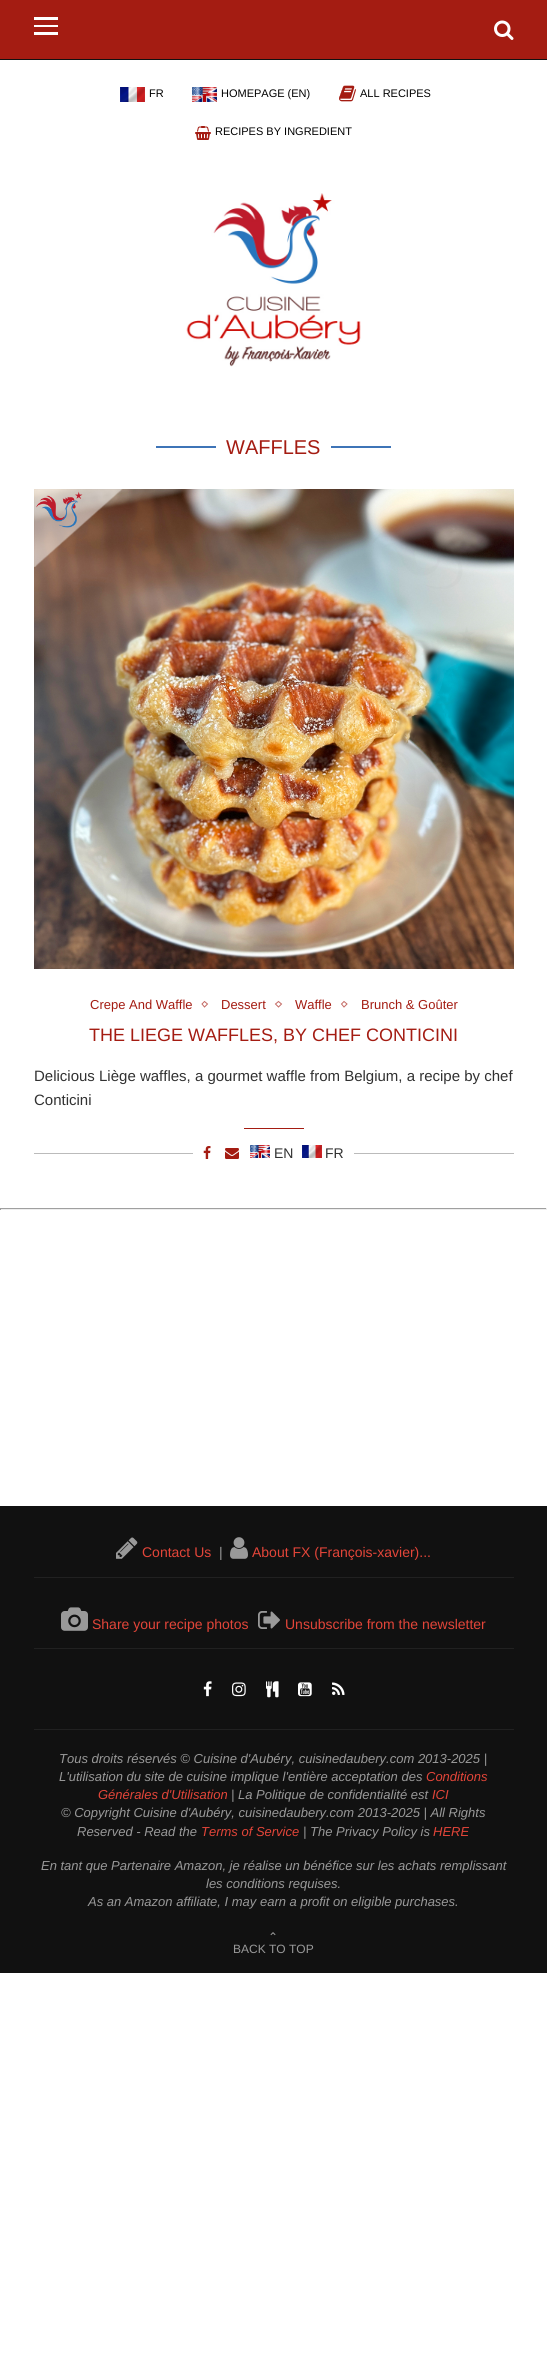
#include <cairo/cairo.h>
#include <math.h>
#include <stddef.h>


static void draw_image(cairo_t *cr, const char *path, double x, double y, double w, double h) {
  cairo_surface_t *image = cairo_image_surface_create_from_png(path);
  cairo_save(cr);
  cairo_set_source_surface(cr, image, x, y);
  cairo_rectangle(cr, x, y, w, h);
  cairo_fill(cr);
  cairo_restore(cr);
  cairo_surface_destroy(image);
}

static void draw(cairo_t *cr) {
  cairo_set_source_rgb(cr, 1, 1, 1);
  cairo_paint(cr);
  cairo_set_source_rgb(cr, 164 / 255.0, 28 / 255.0, 18 / 255.0);
  cairo_rectangle(cr, 0, 0, 547, 59);
  cairo_fill(cr);
  cairo_set_source_rgb(cr, 17 / 255.0, 17 / 255.0, 17 / 255.0);
  cairo_rectangle(cr, 0, 59, 547, 1);
  cairo_fill(cr);
  cairo_set_source_rgb(cr, 1, 1, 1);
  cairo_rectangle(cr, 34, 17, 24, 3);
  cairo_fill(cr);
  cairo_rectangle(cr, 34, 25, 24, 2);
  cairo_fill(cr);
  cairo_rectangle(cr, 34, 32, 24, 3);
  cairo_fill(cr);
  draw_image(cr, "images/1.png", 494, 20, 20, 20);
  draw_image(cr, "images/2.png", 120, 87, 25, 15);
  draw_image(cr, "images/3.png", 192, 87, 25, 15);
  draw_image(cr, "images/4.png", 339, 85, 17, 17);
  draw_image(cr, "images/5.png", 195, 126, 16, 14);
  draw_image(cr, "images/6.png", 186, 193, 175, 174);
  cairo_set_source_rgb(cr, 62 / 255.0, 116 / 255.0, 183 / 255.0);
  cairo_rectangle(cr, 156, 446, 60, 2);
  cairo_fill(cr);
  cairo_rectangle(cr, 331, 446, 60, 2);
  cairo_fill(cr);
  draw_image(cr, "images/7.png", 34, 489, 480, 480);
  cairo_new_path(cr);
  cairo_move_to(cr, 204.5, 1001.5);
  cairo_line_to(cr, 207.5, 1004);
  cairo_line_to(cr, 204.5, 1007);
  cairo_line_to(cr, 202, 1004);
  cairo_close_path(cr);
  cairo_set_source_rgb(cr, 196 / 255.0, 107 / 255.0, 101 / 255.0);
  cairo_set_line_width(cr, 1);
  cairo_stroke(cr);
  cairo_new_path(cr);
  cairo_move_to(cr, 278.5, 1001.5);
  cairo_line_to(cr, 281.5, 1004);
  cairo_line_to(cr, 278.5, 1007);
  cairo_line_to(cr, 275.5, 1004);
  cairo_close_path(cr);
  cairo_stroke(cr);
  cairo_new_path(cr);
  cairo_move_to(cr, 344, 1001.5);
  cairo_line_to(cr, 347, 1004);
  cairo_line_to(cr, 344, 1007);
  cairo_line_to(cr, 341.5, 1004);
  cairo_close_path(cr);
  cairo_stroke(cr);
  cairo_set_source_rgb(cr, 164 / 255.0, 28 / 255.0, 18 / 255.0);
  cairo_rectangle(cr, 244, 1128, 60, 1);
  cairo_fill(cr);
  cairo_set_source_rgb(cr, 187 / 255.0, 187 / 255.0, 187 / 255.0);
  cairo_rectangle(cr, 34, 1153, 480, 1);
  cairo_fill(cr);
  cairo_set_source_rgb(cr, 1, 1, 1);
  cairo_rectangle(cr, 193, 1153, 161, 1);
  cairo_fill(cr);
  draw_image(cr, "images/8.png", 203, 1146, 8, 13);
  draw_image(cr, "images/9.png", 225, 1148, 14, 11);
  draw_image(cr, "images/10.png", 250, 1145, 20, 13);
  draw_image(cr, "images/11.png", 302, 1145, 20, 13);
  cairo_set_source_rgb(cr, 159 / 255.0, 159 / 255.0, 159 / 255.0);
  cairo_rectangle(cr, 0, 1208, 547, 1);
  cairo_fill(cr);
  cairo_set_source_rgb(cr, 238 / 255.0, 238 / 255.0, 238 / 255.0);
  cairo_rectangle(cr, 546, 1208, 1, 2);
  cairo_fill(cr);
  cairo_rectangle(cr, 0, 1209, 547, 1);
  cairo_fill(cr);
  cairo_set_source_rgb(cr, 159 / 255.0, 159 / 255.0, 159 / 255.0);
  cairo_rectangle(cr, 0, 1208, 1, 2);
  cairo_fill(cr);
  cairo_set_source_rgb(cr, 17 / 255.0, 17 / 255.0, 17 / 255.0);
  cairo_rectangle(cr, 0, 1506, 547, 467);
  cairo_fill(cr);
  cairo_set_source_rgb(cr, 33 / 255.0, 33 / 255.0, 33 / 255.0);
  cairo_rectangle(cr, 34, 1577, 480, 1);
  cairo_fill(cr);
  draw_image(cr, "images/12.png", 116, 1537, 22, 22);
  draw_image(cr, "images/13.png", 230, 1537, 18, 22);
  cairo_rectangle(cr, 34, 1648, 480, 1);
  cairo_fill(cr);
  draw_image(cr, "images/14.png", 61, 1607, 27, 24);
  draw_image(cr, "images/15.png", 258, 1611, 22, 18);
  cairo_rectangle(cr, 34, 1729, 480, 1);
  cairo_fill(cr);
  draw_image(cr, "images/16.png", 203, 1681, 9, 16);
  draw_image(cr, "images/17.png", 232, 1682, 14, 15);
  draw_image(cr, "images/18.png", 266, 1681, 13, 17);
  draw_image(cr, "images/19.png", 298, 1682, 14, 15);
  draw_image(cr, "images/20.png", 332, 1682, 13, 13);
  cairo_select_font_face(cr, "Liberation Sans", CAIRO_FONT_SLANT_NORMAL, CAIRO_FONT_WEIGHT_NORMAL);
  cairo_set_font_size(cr, 11);
  cairo_set_source_rgb(cr, 0, 0, 0);
  cairo_move_to(cr, 149, 97);
  cairo_show_text(cr, "FR");
  cairo_move_to(cr, 221, 97);
  cairo_show_text(cr, "HOMEPAGE (EN)");
  cairo_move_to(cr, 360, 97);
  cairo_show_text(cr, "ALL RECIPES");
  cairo_move_to(cr, 215, 135);
  cairo_show_text(cr, "RECIPES BY INGREDIENT");
  cairo_set_font_size(cr, 20);
  cairo_set_source_rgb(cr, 164 / 255.0, 28 / 255.0, 18 / 255.0);
  cairo_move_to(cr, 226, 454);
  cairo_show_text(cr, "WAFFLES");
  cairo_set_font_size(cr, 13);
  cairo_move_to(cr, 90, 1009);
  cairo_show_text(cr, "Crepe And Waffle");
  cairo_move_to(cr, 221, 1009);
  cairo_show_text(cr, "Dessert");
  cairo_move_to(cr, 295, 1009);
  cairo_show_text(cr, "Waffle");
  cairo_move_to(cr, 361, 1009);
  cairo_show_text(cr, "Brunch & Goûter");
  cairo_set_font_size(cr, 18);
  cairo_move_to(cr, 89, 1041);
  cairo_show_text(cr, "THE LIEGE WAFFLES, BY CHEF CONTICINI");
  cairo_set_font_size(cr, 15);
  cairo_set_source_rgb(cr, 49 / 255.0, 49 / 255.0, 49 / 255.0);
  cairo_move_to(cr, 34, 1081);
  cairo_show_text(cr, "Delicious Liège waffles, a gourmet waffle from Belgium, a recipe by chef");
  cairo_move_to(cr, 34, 1105);
  cairo_show_text(cr, "Conticini");
  cairo_set_font_size(cr, 14);
  cairo_move_to(cr, 274, 1158);
  cairo_show_text(cr, "EN");
  cairo_move_to(cr, 325, 1158);
  cairo_show_text(cr, "FR");
  cairo_set_source_rgb(cr, 227 / 255.0, 69 / 255.0, 57 / 255.0);
  cairo_move_to(cr, 142, 1557);
  cairo_show_text(cr, "Contact Us");
  cairo_set_source_rgb(cr, 153 / 255.0, 153 / 255.0, 153 / 255.0);
  cairo_move_to(cr, 219, 1557);
  cairo_show_text(cr, "|");
  cairo_set_source_rgb(cr, 227 / 255.0, 69 / 255.0, 57 / 255.0);
  cairo_move_to(cr, 252, 1557);
  cairo_show_text(cr, "About FX (François-xavier)...");
  cairo_move_to(cr, 92, 1629);
  cairo_show_text(cr, "Share your recipe photos");
  cairo_move_to(cr, 285, 1629);
  cairo_show_text(cr, "Unsubscribe from the newsletter");
  cairo_select_font_face(cr, "Liberation Sans", CAIRO_FONT_SLANT_ITALIC, CAIRO_FONT_WEIGHT_NORMAL);
  cairo_set_font_size(cr, 13);
  cairo_set_source_rgb(cr, 153 / 255.0, 153 / 255.0, 153 / 255.0);
  cairo_move_to(cr, 59, 1763);
  cairo_show_text(cr, "Tous droits réservés © Cuisine d'Aubéry, cuisinedaubery.com 2013-2025 |");
  cairo_move_to(cr, 59, 1781);
  cairo_show_text(cr, "L'utilisation du site de cuisine implique l'entière acceptation des");
  cairo_set_source_rgb(cr, 227 / 255.0, 69 / 255.0, 57 / 255.0);
  cairo_move_to(cr, 426, 1781);
  cairo_show_text(cr, "Conditions");
  cairo_move_to(cr, 98, 1799);
  cairo_show_text(cr, "Générales d'Utilisation");
  cairo_set_source_rgb(cr, 153 / 255.0, 153 / 255.0, 153 / 255.0);
  cairo_move_to(cr, 231, 1799);
  cairo_show_text(cr, "| La Politique de confidentialité est");
  cairo_set_source_rgb(cr, 227 / 255.0, 69 / 255.0, 57 / 255.0);
  cairo_move_to(cr, 432, 1799);
  cairo_show_text(cr, "ICI");
  cairo_set_source_rgb(cr, 153 / 255.0, 153 / 255.0, 153 / 255.0);
  cairo_move_to(cr, 61, 1817);
  cairo_show_text(cr, "© Copyright Cuisine d'Aubéry, cuisinedaubery.com 2013-2025 | All Rights");
  cairo_move_to(cr, 77, 1836);
  cairo_show_text(cr, "Reserved - Read the");
  cairo_set_source_rgb(cr, 227 / 255.0, 69 / 255.0, 57 / 255.0);
  cairo_move_to(cr, 201, 1836);
  cairo_show_text(cr, "Terms of Service");
  cairo_set_source_rgb(cr, 153 / 255.0, 153 / 255.0, 153 / 255.0);
  cairo_move_to(cr, 303, 1836);
  cairo_show_text(cr, "| The Privacy Policy is");
  cairo_set_source_rgb(cr, 227 / 255.0, 69 / 255.0, 57 / 255.0);
  cairo_move_to(cr, 433, 1836);
  cairo_show_text(cr, "HERE");
  cairo_set_source_rgb(cr, 153 / 255.0, 153 / 255.0, 153 / 255.0);
  cairo_move_to(cr, 41, 1870);
  cairo_show_text(cr, "En tant que Partenaire Amazon, je réalise un bénéfice sur les achats remplissant");
  cairo_move_to(cr, 206, 1888);
  cairo_show_text(cr, "les conditions requises.");
  cairo_move_to(cr, 88, 1906);
  cairo_show_text(cr, "As an Amazon affiliate, I may earn a profit on eligible purchases.");
  cairo_select_font_face(cr, "DejaVu Sans", CAIRO_FONT_SLANT_NORMAL, CAIRO_FONT_WEIGHT_NORMAL);
  cairo_set_font_size(cr, 12);
  cairo_move_to(cr, 268, 1941);
  cairo_show_text(cr, "⌃");
  cairo_select_font_face(cr, "Liberation Sans", CAIRO_FONT_SLANT_NORMAL, CAIRO_FONT_WEIGHT_NORMAL);
  cairo_move_to(cr, 233, 1953);
  cairo_show_text(cr, "BACK TO TOP");
}

int main(void) {
  cairo_surface_t *surface = cairo_image_surface_create(CAIRO_FORMAT_RGB24, 547, 2370);
  cairo_t *cr = cairo_create(surface);
  cairo_font_options_t *options = cairo_font_options_create();
  cairo_font_options_set_hint_metrics(options, CAIRO_HINT_METRICS_OFF);
  cairo_font_options_set_hint_style(options, CAIRO_HINT_STYLE_NONE);
  cairo_set_font_options(cr, options);
  cairo_set_miter_limit(cr, 4);
  draw(cr);
  cairo_surface_write_to_png(surface, "out.png");
  cairo_font_options_destroy(options);
  cairo_destroy(cr);
  cairo_surface_destroy(surface);
  return 0;
}
